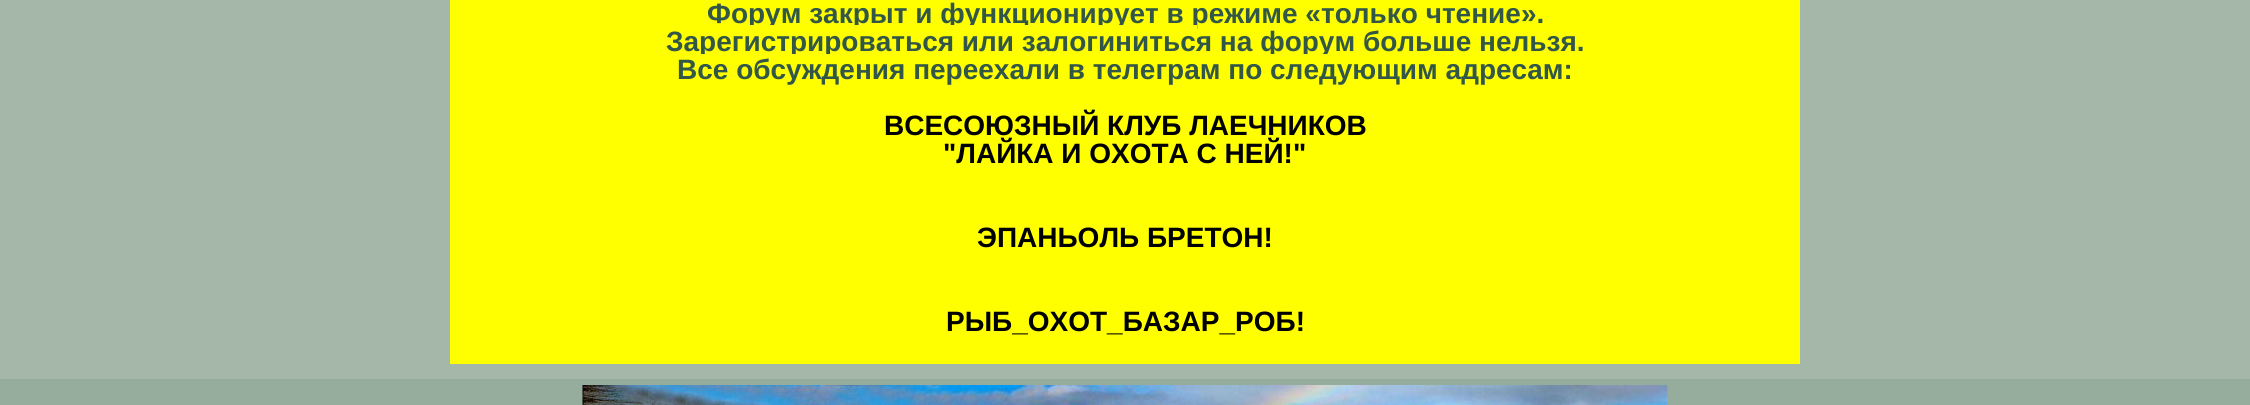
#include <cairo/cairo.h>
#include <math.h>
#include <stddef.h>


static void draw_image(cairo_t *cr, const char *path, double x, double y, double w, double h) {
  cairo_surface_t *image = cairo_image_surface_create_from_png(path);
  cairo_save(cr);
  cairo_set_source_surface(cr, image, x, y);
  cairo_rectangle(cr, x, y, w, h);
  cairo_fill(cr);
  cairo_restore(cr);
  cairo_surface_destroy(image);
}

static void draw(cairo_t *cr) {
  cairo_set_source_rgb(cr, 164 / 255.0, 183 / 255.0, 168 / 255.0);
  cairo_paint(cr);
  cairo_set_source_rgb(cr, 1, 1, 0);
  cairo_rectangle(cr, 450, 0, 1350, 364);
  cairo_fill(cr);
  cairo_set_source_rgb(cr, 150 / 255.0, 172 / 255.0, 156 / 255.0);
  cairo_rectangle(cr, 0, 379, 2250, 26);
  cairo_fill(cr);
  draw_image(cr, "images/1.png", 582, 385, 1086, 20);
  cairo_select_font_face(cr, "Liberation Sans", CAIRO_FONT_SLANT_NORMAL, CAIRO_FONT_WEIGHT_BOLD);
  cairo_set_font_size(cr, 28);
  cairo_set_source_rgb(cr, 50 / 255.0, 87 / 255.0, 71 / 255.0);
  cairo_move_to(cr, 707, 23);
  cairo_show_text(cr, "Форум закрыт и функционирует в режиме «только чтение».");
  cairo_move_to(cr, 666, 51);
  cairo_show_text(cr, "Зарегистрироваться или залогиниться на форум больше нельзя.");
  cairo_set_source_rgb(cr, 1, 1, 0);
  cairo_rectangle(cr, 749, 25, 448, 4);
  cairo_fill(cr);
  cairo_set_source_rgb(cr, 50 / 255.0, 87 / 255.0, 71 / 255.0);
  cairo_move_to(cr, 677, 79);
  cairo_show_text(cr, "Все обсуждения переехали в телеграм по следующим адресам:");
  cairo_set_source_rgb(cr, 1, 1, 0);
  cairo_rectangle(cr, 701, 54, 626, 3);
  cairo_fill(cr);
  cairo_set_source_rgb(cr, 0, 0, 0);
  cairo_move_to(cr, 884, 135);
  cairo_show_text(cr, "ВСЕСОЮЗНЫЙ КЛУБ ЛАЕЧНИКОВ");
  cairo_move_to(cr, 943, 163);
  cairo_show_text(cr, "\"ЛАЙКА И ОХОТА С НЕЙ!\"");
  cairo_move_to(cr, 977, 247);
  cairo_show_text(cr, "ЭПАНЬОЛЬ БРЕТОН!");
  cairo_move_to(cr, 946, 331);
  cairo_show_text(cr, "РЫБ_ОХОТ_БАЗАР_РОБ!");
}

int main(void) {
  cairo_surface_t *surface = cairo_image_surface_create(CAIRO_FORMAT_RGB24, 2250, 405);
  cairo_t *cr = cairo_create(surface);
  cairo_font_options_t *options = cairo_font_options_create();
  cairo_font_options_set_hint_metrics(options, CAIRO_HINT_METRICS_OFF);
  cairo_font_options_set_hint_style(options, CAIRO_HINT_STYLE_NONE);
  cairo_set_font_options(cr, options);
  cairo_set_miter_limit(cr, 4);
  draw(cr);
  cairo_surface_write_to_png(surface, "out.png");
  cairo_font_options_destroy(options);
  cairo_destroy(cr);
  cairo_surface_destroy(surface);
  return 0;
}
